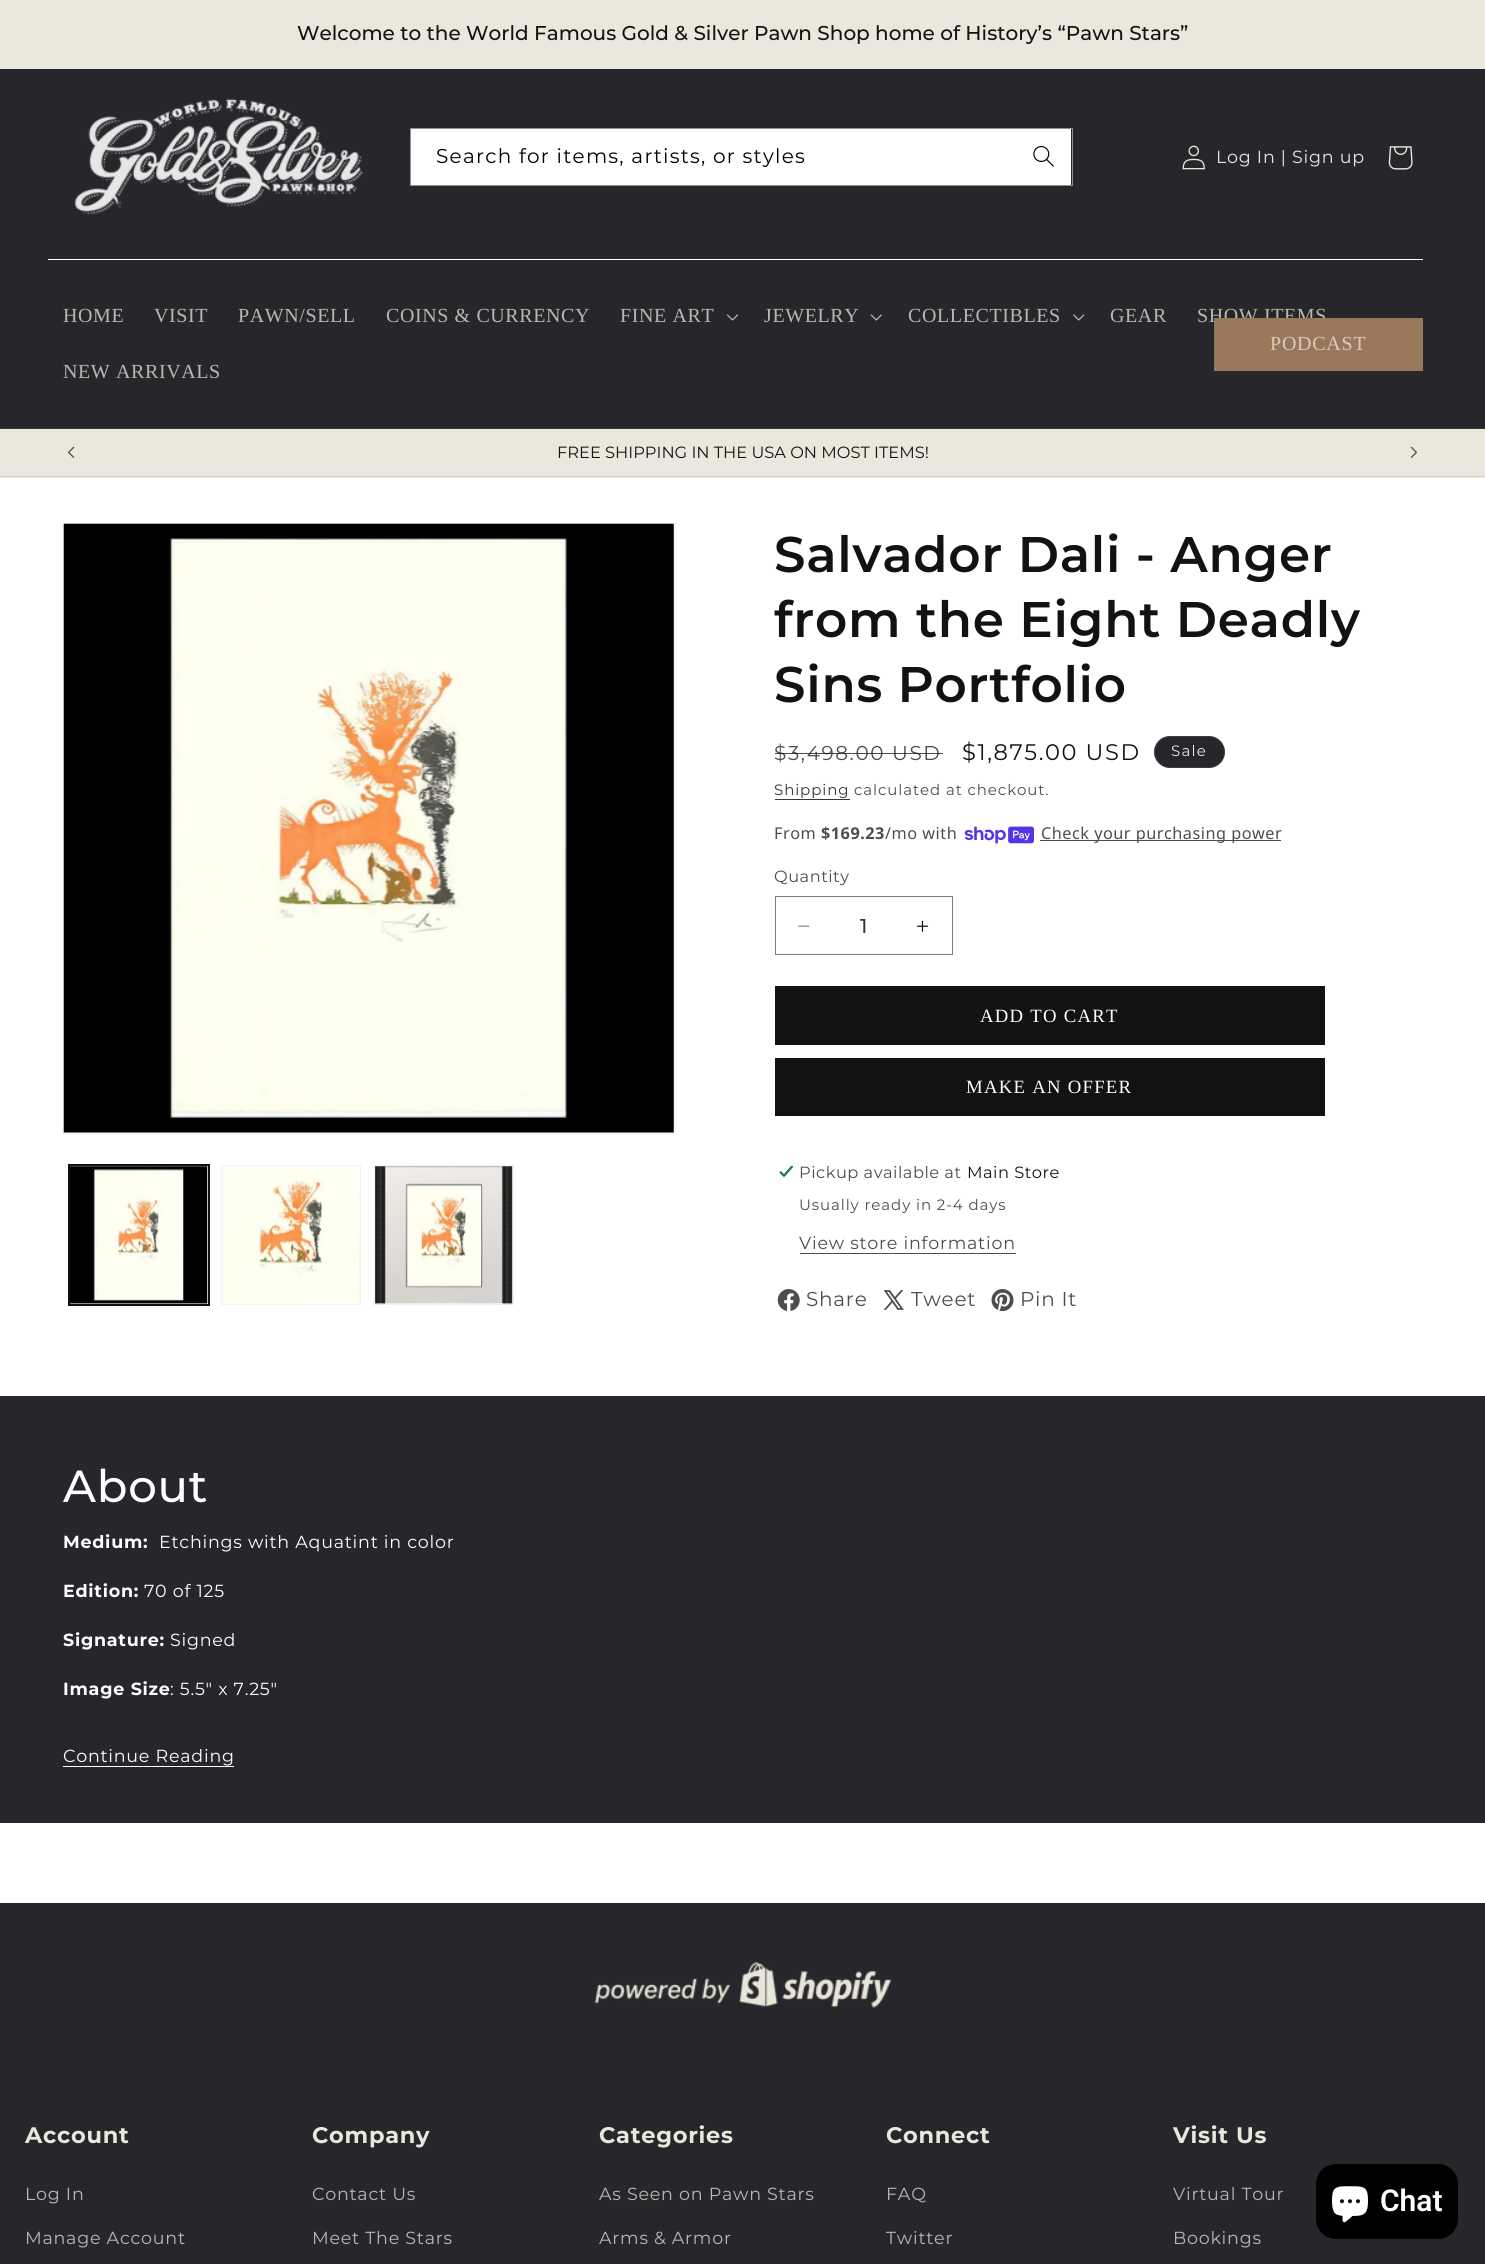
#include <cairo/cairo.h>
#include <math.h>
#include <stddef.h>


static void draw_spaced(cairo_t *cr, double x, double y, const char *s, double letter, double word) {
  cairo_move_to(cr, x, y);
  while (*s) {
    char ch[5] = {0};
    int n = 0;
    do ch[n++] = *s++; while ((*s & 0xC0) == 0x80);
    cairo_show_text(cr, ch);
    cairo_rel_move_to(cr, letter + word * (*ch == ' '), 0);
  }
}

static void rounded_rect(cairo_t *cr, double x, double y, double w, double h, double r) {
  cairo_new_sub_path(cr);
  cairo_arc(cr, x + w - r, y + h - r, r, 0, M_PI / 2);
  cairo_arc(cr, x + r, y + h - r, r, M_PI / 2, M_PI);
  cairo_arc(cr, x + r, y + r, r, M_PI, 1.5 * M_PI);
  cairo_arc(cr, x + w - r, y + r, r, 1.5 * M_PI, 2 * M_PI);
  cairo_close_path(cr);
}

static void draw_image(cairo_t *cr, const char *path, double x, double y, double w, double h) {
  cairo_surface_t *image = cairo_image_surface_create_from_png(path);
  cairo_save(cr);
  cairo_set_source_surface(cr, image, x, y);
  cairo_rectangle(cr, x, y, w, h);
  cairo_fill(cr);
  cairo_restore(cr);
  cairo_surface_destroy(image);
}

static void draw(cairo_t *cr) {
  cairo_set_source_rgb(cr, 1, 1, 1);
  cairo_paint(cr);
  cairo_set_source_rgb(cr, 234 / 255.0, 232 / 255.0, 220 / 255.0);
  cairo_rectangle(cr, 0, 0, 1485, 69);
  cairo_fill(cr);
  cairo_set_source_rgb(cr, 39 / 255.0, 38 / 255.0, 43 / 255.0);
  cairo_rectangle(cr, 0, 69, 1485, 359);
  cairo_fill(cr);
  cairo_set_source_rgb(cr, 55 / 255.0, 54 / 255.0, 57 / 255.0);
  cairo_rectangle(cr, 0, 428, 1485, 1);
  cairo_fill(cr);
  draw_image(cr, "images/1.png", 74, 98, 289, 117);
  cairo_set_source_rgb(cr, 1, 1, 1);
  cairo_rectangle(cr, 411, 129, 660, 56);
  cairo_fill(cr);
  draw_image(cr, "images/2.png", 1033, 146, 21, 21);
  cairo_rectangle(cr, 410.5, 128.5, 662, 57);
  cairo_set_source_rgb(cr, 146 / 255.0, 145 / 255.0, 140 / 255.0);
  cairo_set_line_width(cr, 1);
  cairo_stroke(cr);
  draw_image(cr, "images/3.png", 1182, 145, 23, 25);
  draw_image(cr, "images/4.png", 1388, 146, 25, 24);
  cairo_set_source_rgb(cr, 1, 1, 1);
  cairo_rectangle(cr, 48, 259, 1375, 1);
  cairo_fill(cr);
  draw_image(cr, "images/5.png", 727, 314, 11, 7);
  draw_image(cr, "images/6.png", 870, 314, 12, 7);
  draw_image(cr, "images/7.png", 1073, 314, 12, 7);
  cairo_set_source_rgb(cr, 234 / 255.0, 232 / 255.0, 220 / 255.0);
  cairo_rectangle(cr, 0, 429, 1485, 49);
  cairo_fill(cr);
  cairo_set_source_rgb(cr, 217 / 255.0, 215 / 255.0, 204 / 255.0);
  cairo_rectangle(cr, 0, 476, 1485, 1);
  cairo_fill(cr);
  draw_image(cr, "images/8.png", 68, 446, 7, 12);
  draw_image(cr, "images/9.png", 1410, 446, 7, 12);
  cairo_rectangle(cr, 63.5, 523.5, 611, 610);
  cairo_set_source_rgb(cr, 243 / 255.0, 243 / 255.0, 243 / 255.0);
  cairo_stroke(cr);
  draw_image(cr, "images/10.png", 63, 523, 611, 610);
  cairo_rectangle(cr, 68.5, 1164.5, 141, 141);
  cairo_set_source_rgb(cr, 18 / 255.0, 18 / 255.0, 18 / 255.0);
  cairo_stroke(cr);
  cairo_rectangle(cr, 69.5, 1165.5, 139, 139);
  cairo_stroke(cr);
  draw_image(cr, "images/11.png", 70, 1166, 138, 138);
  cairo_rectangle(cr, 221.5, 1165.5, 139, 139);
  cairo_set_source_rgb(cr, 243 / 255.0, 243 / 255.0, 243 / 255.0);
  cairo_stroke(cr);
  draw_image(cr, "images/12.png", 222, 1166, 138, 138);
  cairo_rectangle(cr, 374.5, 1165.5, 139, 139);
  cairo_stroke(cr);
  draw_image(cr, "images/13.png", 375, 1166, 138, 139);
  cairo_set_source_rgb(cr, 39 / 255.0, 38 / 255.0, 43 / 255.0);
  rounded_rect(cr, 1154, 736, 71, 32, 16);
  cairo_fill(cr);
  rounded_rect(cr, 1154.5, 736.5, 70, 31, 15.5);
  cairo_set_source_rgba(cr, 234 / 255.0, 232 / 255.0, 220 / 255.0, 0.1);
  cairo_stroke(cr);
  cairo_set_source_rgb(cr, 54 / 255.0, 54 / 255.0, 54 / 255.0);
  cairo_rectangle(cr, 775, 799, 75, 1);
  cairo_fill(cr);
  draw_image(cr, "images/14.png", 964, 826, 70, 18);
  cairo_set_source_rgb(cr, 77 / 255.0, 77 / 255.0, 77 / 255.0);
  cairo_rectangle(cr, 1040, 840, 241, 1);
  cairo_fill(cr);
  draw_image(cr, "images/15.png", 798, 925, 12, 2);
  draw_image(cr, "images/16.png", 916, 920, 13, 12);
  cairo_rectangle(cr, 775.5, 896.5, 177, 58);
  cairo_set_source_rgb(cr, 125 / 255.0, 125 / 255.0, 125 / 255.0);
  cairo_stroke(cr);
  cairo_set_source_rgb(cr, 18 / 255.0, 18 / 255.0, 18 / 255.0);
  cairo_rectangle(cr, 775, 986, 550, 59);
  cairo_fill(cr);
  cairo_rectangle(cr, 775, 1058, 550, 58);
  cairo_fill(cr);
  draw_image(cr, "images/17.png", 779, 1165, 15, 13);
  cairo_set_source_rgb(cr, 77 / 255.0, 77 / 255.0, 77 / 255.0);
  cairo_rectangle(cr, 800, 1253, 216, 1);
  cairo_fill(cr);
  draw_image(cr, "images/18.png", 777, 1289, 23, 22);
  draw_image(cr, "images/19.png", 883, 1290, 21, 20);
  draw_image(cr, "images/20.png", 991, 1289, 23, 23);
  cairo_set_source_rgb(cr, 39 / 255.0, 38 / 255.0, 43 / 255.0);
  cairo_rectangle(cr, 0, 1396, 1485, 427);
  cairo_fill(cr);
  cairo_set_source_rgb(cr, 1, 1, 1);
  cairo_rectangle(cr, 63, 1766, 171, 1);
  cairo_fill(cr);
  cairo_set_source_rgb(cr, 39 / 255.0, 38 / 255.0, 43 / 255.0);
  cairo_rectangle(cr, 0, 1903, 1485, 361);
  cairo_fill(cr);
  draw_image(cr, "images/21.png", 594, 1962, 298, 46);
  cairo_set_source_rgb(cr, 0, 0, 0);
  rounded_rect(cr, 1316, 2164, 142, 75, 20);
  cairo_fill(cr);
  draw_image(cr, "images/22.png", 1332, 2186, 36, 37);
  cairo_select_font_face(cr, "Montserrat Medium", CAIRO_FONT_SLANT_NORMAL, CAIRO_FONT_WEIGHT_NORMAL);
  cairo_set_font_size(cr, 20);
  cairo_set_source_rgb(cr, 18 / 255.0, 18 / 255.0, 18 / 255.0);
  cairo_move_to(cr, 297, 40);
  cairo_show_text(cr, "Welcome to the World Famous Gold & Silver Pawn Shop home of History’s “Pawn Stars”");
  cairo_select_font_face(cr, "Montserrat", CAIRO_FONT_SLANT_NORMAL, CAIRO_FONT_WEIGHT_NORMAL);
  cairo_set_source_rgb(cr, 0, 0, 0);
  draw_spaced(cr, 436, 163, "Search for items, artists, or styles", 1.25, 0);
  cairo_set_font_size(cr, 17.5);
  cairo_set_source_rgb(cr, 234 / 255.0, 232 / 255.0, 220 / 255.0);
  draw_spaced(cr, 1216, 163, "Log In | Sign up", 0.75, 0);
  cairo_select_font_face(cr, "Liberation Serif", CAIRO_FONT_SLANT_NORMAL, CAIRO_FONT_WEIGHT_NORMAL);
  cairo_set_font_size(cr, 20);
  cairo_set_source_rgb(cr, 185 / 255.0, 184 / 255.0, 176 / 255.0);
  draw_spaced(cr, 63, 322, "HOME", 0.6, 0);
  draw_spaced(cr, 154, 322, "VISIT", 0.6, 0);
  draw_spaced(cr, 238, 322, "PAWN/SELL", 0.6, 0);
  draw_spaced(cr, 386, 322, "COINS & CURRENCY", 0.6, 0);
  draw_spaced(cr, 620, 322, "FINE ART", 0.6, 0);
  draw_spaced(cr, 764, 322, "JEWELRY", 0.6, 0);
  draw_spaced(cr, 908, 322, "COLLECTIBLES", 0.6, 0);
  draw_spaced(cr, 1110, 322, "GEAR", 0.6, 0);
  draw_spaced(cr, 1197, 322, "SHOW ITEMS", 0.6, 0);
  draw_spaced(cr, 63, 378, "NEW ARRIVALS", 0.6, 0);
  cairo_set_source_rgb(cr, 153 / 255.0, 119 / 255.0, 91 / 255.0);
  cairo_rectangle(cr, 1214, 318, 209, 53);
  cairo_fill(cr);
  cairo_set_source_rgb(cr, 214 / 255.0, 204 / 255.0, 188 / 255.0);
  draw_spaced(cr, 1270, 350, "PODCAST", 0.75, 0);
  cairo_select_font_face(cr, "Montserrat", CAIRO_FONT_SLANT_NORMAL, CAIRO_FONT_WEIGHT_NORMAL);
  cairo_set_font_size(cr, 16.25);
  cairo_set_source_rgb(cr, 18 / 255.0, 18 / 255.0, 18 / 255.0);
  cairo_move_to(cr, 557, 458);
  cairo_show_text(cr, "FREE SHIPPING IN THE USA ON MOST ITEMS!");
  cairo_select_font_face(cr, "Montserrat SemiBold", CAIRO_FONT_SLANT_NORMAL, CAIRO_FONT_WEIGHT_NORMAL);
  cairo_set_font_size(cr, 50);
  draw_spaced(cr, 774, 572, "Salvador Dali - Anger", 0.75, 0);
  draw_spaced(cr, 774, 637, "from the Eight Deadly", 0.75, 0);
  draw_spaced(cr, 774, 702, "Sins Portfolio", 0.75, 0);
  cairo_select_font_face(cr, "Montserrat", CAIRO_FONT_SLANT_NORMAL, CAIRO_FONT_WEIGHT_NORMAL);
  cairo_set_font_size(cr, 20);
  cairo_set_source_rgb(cr, 77 / 255.0, 77 / 255.0, 77 / 255.0);
  draw_spaced(cr, 774, 760, "$3,498.00 USD", 1.6, 0);
  cairo_set_source_rgba(cr, 18 / 255.0, 18 / 255.0, 18 / 255.0, 0.75);
  cairo_rectangle(cr, 775, 753, 168, 1);
  cairo_fill(cr);
  cairo_set_font_size(cr, 22.5);
  cairo_set_source_rgb(cr, 18 / 255.0, 18 / 255.0, 18 / 255.0);
  draw_spaced(cr, 962, 760, "$1,875.00 USD", 1.6, 0);
  cairo_set_font_size(cr, 15);
  cairo_set_source_rgb(cr, 234 / 255.0, 232 / 255.0, 220 / 255.0);
  draw_spaced(cr, 1171, 756, "Sale", 1.25, 0);
  cairo_set_source_rgb(cr, 54 / 255.0, 54 / 255.0, 54 / 255.0);
  draw_spaced(cr, 774, 795, "Shipping", 0.9, 0);
  cairo_set_source_rgb(cr, 77 / 255.0, 77 / 255.0, 77 / 255.0);
  draw_spaced(cr, 854, 795, "calculated at checkout.", 0.9, 0);
  cairo_select_font_face(cr, "Noto Sans", CAIRO_FONT_SLANT_NORMAL, CAIRO_FONT_WEIGHT_NORMAL);
  cairo_set_font_size(cr, 16.25);
  draw_spaced(cr, 774, 839, "From", 0.5, 0);
  cairo_select_font_face(cr, "Noto Sans", CAIRO_FONT_SLANT_NORMAL, CAIRO_FONT_WEIGHT_BOLD);
  draw_spaced(cr, 821, 839, "$169.23", 0.5, 0);
  cairo_select_font_face(cr, "Noto Sans", CAIRO_FONT_SLANT_NORMAL, CAIRO_FONT_WEIGHT_NORMAL);
  draw_spaced(cr, 885, 839, "/mo with", 0.5, 0);
  draw_spaced(cr, 1041, 839, "Check your purchasing power", 0.5, 0);
  cairo_select_font_face(cr, "Montserrat", CAIRO_FONT_SLANT_NORMAL, CAIRO_FONT_WEIGHT_NORMAL);
  draw_spaced(cr, 774, 882, "Quantity", 0.5, 0);
  cairo_select_font_face(cr, "Montserrat Medium", CAIRO_FONT_SLANT_NORMAL, CAIRO_FONT_WEIGHT_NORMAL);
  cairo_set_font_size(cr, 20);
  cairo_set_source_rgb(cr, 54 / 255.0, 54 / 255.0, 54 / 255.0);
  cairo_move_to(cr, 860, 933);
  cairo_show_text(cr, "1");
  cairo_select_font_face(cr, "Liberation Serif", CAIRO_FONT_SLANT_NORMAL, CAIRO_FONT_WEIGHT_NORMAL);
  cairo_set_font_size(cr, 18.75);
  cairo_set_source_rgb(cr, 1, 1, 1);
  draw_spaced(cr, 980, 1022, "ADD TO CART", 1.25, 0);
  draw_spaced(cr, 966, 1093, "MAKE AN OFFER", 1.25, 0);
  cairo_select_font_face(cr, "Montserrat", CAIRO_FONT_SLANT_NORMAL, CAIRO_FONT_WEIGHT_NORMAL);
  cairo_set_font_size(cr, 16.25);
  cairo_set_source_rgb(cr, 77 / 255.0, 77 / 255.0, 77 / 255.0);
  draw_spaced(cr, 799, 1178, "Pickup available at", 0.5, 0);
  cairo_set_source_rgb(cr, 18 / 255.0, 18 / 255.0, 18 / 255.0);
  draw_spaced(cr, 967, 1178, "Main Store", 0.5, 0);
  cairo_set_font_size(cr, 15);
  cairo_set_source_rgb(cr, 77 / 255.0, 77 / 255.0, 77 / 255.0);
  draw_spaced(cr, 799, 1210, "Usually ready in 2-4 days", 0.9, 0);
  cairo_set_font_size(cr, 17.5);
  draw_spaced(cr, 799, 1249, "View store information", 0.75, 0);
  cairo_set_font_size(cr, 20);
  draw_spaced(cr, 806, 1306, "Share", 0.75, 0);
  draw_spaced(cr, 911, 1306, "Tweet", 0.75, 0);
  draw_spaced(cr, 1020, 1306, "Pin It", 0.75, 0);
  cairo_select_font_face(cr, "Montserrat Medium", CAIRO_FONT_SLANT_NORMAL, CAIRO_FONT_WEIGHT_NORMAL);
  cairo_set_font_size(cr, 45);
  cairo_set_source_rgb(cr, 1, 1, 1);
  draw_spaced(cr, 63, 1502, "About", 0.75, 0);
  cairo_select_font_face(cr, "Montserrat", CAIRO_FONT_SLANT_NORMAL, CAIRO_FONT_WEIGHT_BOLD);
  cairo_set_font_size(cr, 17.5);
  draw_spaced(cr, 63, 1548, "Medium:", 0.75, 0);
  cairo_select_font_face(cr, "Montserrat", CAIRO_FONT_SLANT_NORMAL, CAIRO_FONT_WEIGHT_NORMAL);
  draw_spaced(cr, 159, 1548, "Etchings with Aquatint in color", 0.75, 0);
  cairo_select_font_face(cr, "Montserrat", CAIRO_FONT_SLANT_NORMAL, CAIRO_FONT_WEIGHT_BOLD);
  draw_spaced(cr, 63, 1597, "Edition:", 0.75, 0);
  cairo_select_font_face(cr, "Montserrat", CAIRO_FONT_SLANT_NORMAL, CAIRO_FONT_WEIGHT_NORMAL);
  draw_spaced(cr, 144, 1597, "70 of 125", 0.75, 0);
  cairo_select_font_face(cr, "Montserrat", CAIRO_FONT_SLANT_NORMAL, CAIRO_FONT_WEIGHT_BOLD);
  draw_spaced(cr, 63, 1646, "Signature:", 0.75, 0);
  cairo_select_font_face(cr, "Montserrat", CAIRO_FONT_SLANT_NORMAL, CAIRO_FONT_WEIGHT_NORMAL);
  draw_spaced(cr, 170, 1646, "Signed", 0.75, 0);
  cairo_select_font_face(cr, "Montserrat", CAIRO_FONT_SLANT_NORMAL, CAIRO_FONT_WEIGHT_BOLD);
  draw_spaced(cr, 63, 1695, "Image Size", 0.75, 0);
  cairo_select_font_face(cr, "Montserrat", CAIRO_FONT_SLANT_NORMAL, CAIRO_FONT_WEIGHT_NORMAL);
  draw_spaced(cr, 170, 1695, ": 5.5\" x 7.25\"", 0.75, 0);
  draw_spaced(cr, 63, 1762, "Continue Reading", 0.75, 0);
  cairo_select_font_face(cr, "Montserrat", CAIRO_FONT_SLANT_NORMAL, CAIRO_FONT_WEIGHT_BOLD);
  cairo_set_font_size(cr, 22.5);
  cairo_set_source_rgb(cr, 234 / 255.0, 232 / 255.0, 220 / 255.0);
  draw_spaced(cr, 25, 2143, "Account", 0.75, 0);
  cairo_select_font_face(cr, "Montserrat", CAIRO_FONT_SLANT_NORMAL, CAIRO_FONT_WEIGHT_NORMAL);
  cairo_set_font_size(cr, 17.5);
  cairo_set_source_rgb(cr, 185 / 255.0, 184 / 255.0, 176 / 255.0);
  draw_spaced(cr, 25, 2200, "Log In", 0.75, 0);
  draw_spaced(cr, 25, 2244, "Manage Account", 0.75, 0);
  cairo_select_font_face(cr, "Montserrat", CAIRO_FONT_SLANT_NORMAL, CAIRO_FONT_WEIGHT_BOLD);
  cairo_set_font_size(cr, 22.5);
  cairo_set_source_rgb(cr, 234 / 255.0, 232 / 255.0, 220 / 255.0);
  draw_spaced(cr, 312, 2143, "Company", 0.75, 0);
  cairo_select_font_face(cr, "Montserrat", CAIRO_FONT_SLANT_NORMAL, CAIRO_FONT_WEIGHT_NORMAL);
  cairo_set_font_size(cr, 17.5);
  cairo_set_source_rgb(cr, 185 / 255.0, 184 / 255.0, 176 / 255.0);
  draw_spaced(cr, 312, 2200, "Contact Us", 0.75, 0);
  draw_spaced(cr, 312, 2244, "Meet The Stars", 0.75, 0);
  cairo_select_font_face(cr, "Montserrat", CAIRO_FONT_SLANT_NORMAL, CAIRO_FONT_WEIGHT_BOLD);
  cairo_set_font_size(cr, 22.5);
  cairo_set_source_rgb(cr, 234 / 255.0, 232 / 255.0, 220 / 255.0);
  draw_spaced(cr, 599, 2143, "Categories", 0.75, 0);
  cairo_select_font_face(cr, "Montserrat", CAIRO_FONT_SLANT_NORMAL, CAIRO_FONT_WEIGHT_NORMAL);
  cairo_set_font_size(cr, 17.5);
  cairo_set_source_rgb(cr, 185 / 255.0, 184 / 255.0, 176 / 255.0);
  draw_spaced(cr, 599, 2200, "As Seen on Pawn Stars", 0.75, 0);
  draw_spaced(cr, 599, 2244, "Arms & Armor", 0.75, 0);
  cairo_select_font_face(cr, "Montserrat", CAIRO_FONT_SLANT_NORMAL, CAIRO_FONT_WEIGHT_BOLD);
  cairo_set_font_size(cr, 22.5);
  cairo_set_source_rgb(cr, 234 / 255.0, 232 / 255.0, 220 / 255.0);
  draw_spaced(cr, 886, 2143, "Connect", 0.75, 0);
  cairo_select_font_face(cr, "Montserrat", CAIRO_FONT_SLANT_NORMAL, CAIRO_FONT_WEIGHT_NORMAL);
  cairo_set_font_size(cr, 17.5);
  cairo_set_source_rgb(cr, 185 / 255.0, 184 / 255.0, 176 / 255.0);
  draw_spaced(cr, 886, 2200, "FAQ", 0.75, 0);
  draw_spaced(cr, 886, 2244, "Twitter", 0.75, 0);
  cairo_select_font_face(cr, "Montserrat", CAIRO_FONT_SLANT_NORMAL, CAIRO_FONT_WEIGHT_BOLD);
  cairo_set_font_size(cr, 22.5);
  cairo_set_source_rgb(cr, 234 / 255.0, 232 / 255.0, 220 / 255.0);
  draw_spaced(cr, 1173, 2143, "Visit Us", 0.75, 0);
  cairo_select_font_face(cr, "Montserrat", CAIRO_FONT_SLANT_NORMAL, CAIRO_FONT_WEIGHT_NORMAL);
  cairo_set_font_size(cr, 17.5);
  cairo_set_source_rgb(cr, 185 / 255.0, 184 / 255.0, 176 / 255.0);
  draw_spaced(cr, 1173, 2200, "Virtual Tour", 0.75, 0);
  draw_spaced(cr, 1173, 2244, "Bookings", 0.75, 0);
  cairo_select_font_face(cr, "Roboto SemiBold", CAIRO_FONT_SLANT_NORMAL, CAIRO_FONT_WEIGHT_NORMAL);
  cairo_set_font_size(cr, 30);
  cairo_set_source_rgb(cr, 1, 1, 1);
  cairo_move_to(cr, 1380, 2211);
  cairo_show_text(cr, "Chat");
}

int main(void) {
  cairo_surface_t *surface = cairo_image_surface_create(CAIRO_FORMAT_RGB24, 1485, 2264);
  cairo_t *cr = cairo_create(surface);
  cairo_font_options_t *options = cairo_font_options_create();
  cairo_font_options_set_hint_metrics(options, CAIRO_HINT_METRICS_OFF);
  cairo_font_options_set_hint_style(options, CAIRO_HINT_STYLE_NONE);
  cairo_set_font_options(cr, options);
  cairo_set_miter_limit(cr, 4);
  draw(cr);
  cairo_surface_write_to_png(surface, "out.png");
  cairo_font_options_destroy(options);
  cairo_destroy(cr);
  cairo_surface_destroy(surface);
  return 0;
}
